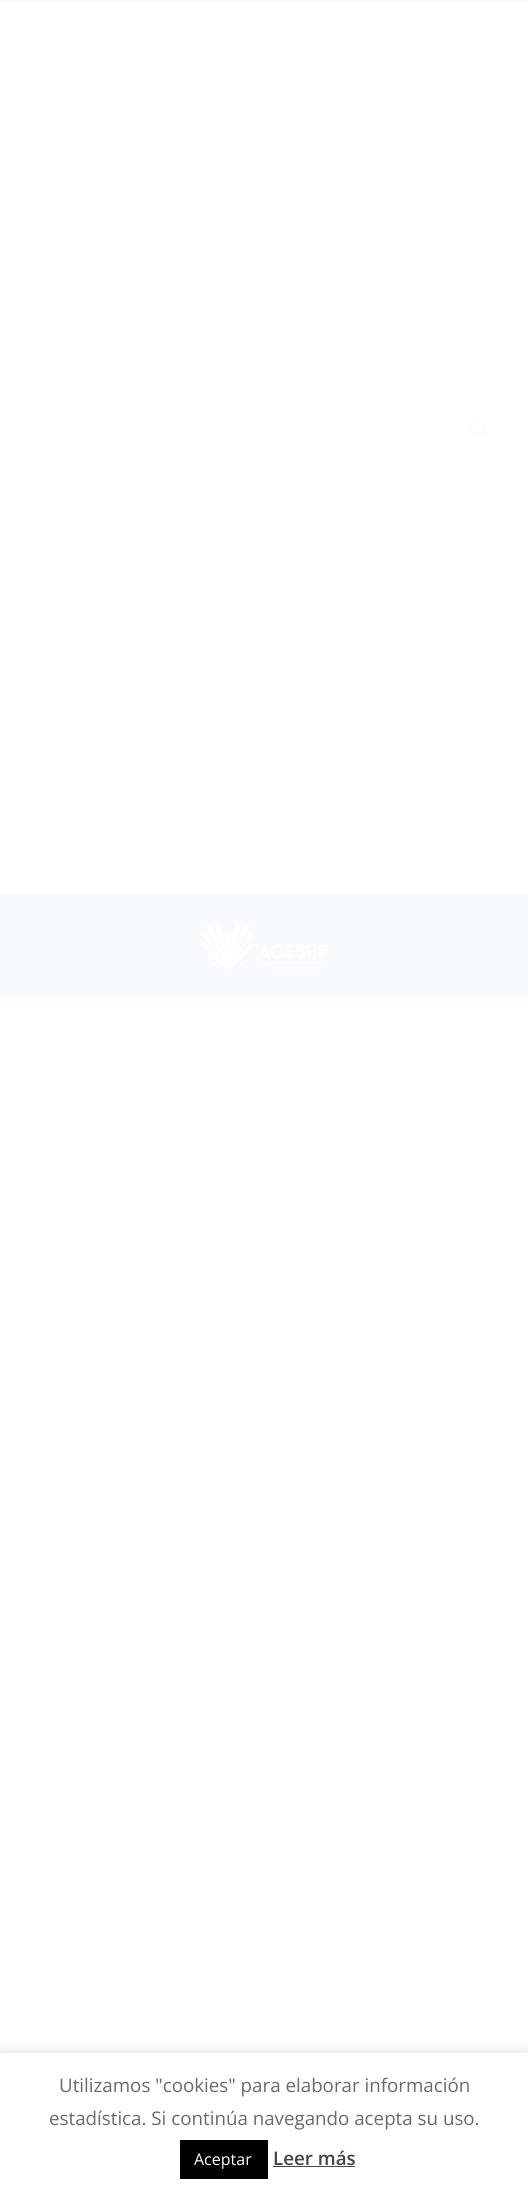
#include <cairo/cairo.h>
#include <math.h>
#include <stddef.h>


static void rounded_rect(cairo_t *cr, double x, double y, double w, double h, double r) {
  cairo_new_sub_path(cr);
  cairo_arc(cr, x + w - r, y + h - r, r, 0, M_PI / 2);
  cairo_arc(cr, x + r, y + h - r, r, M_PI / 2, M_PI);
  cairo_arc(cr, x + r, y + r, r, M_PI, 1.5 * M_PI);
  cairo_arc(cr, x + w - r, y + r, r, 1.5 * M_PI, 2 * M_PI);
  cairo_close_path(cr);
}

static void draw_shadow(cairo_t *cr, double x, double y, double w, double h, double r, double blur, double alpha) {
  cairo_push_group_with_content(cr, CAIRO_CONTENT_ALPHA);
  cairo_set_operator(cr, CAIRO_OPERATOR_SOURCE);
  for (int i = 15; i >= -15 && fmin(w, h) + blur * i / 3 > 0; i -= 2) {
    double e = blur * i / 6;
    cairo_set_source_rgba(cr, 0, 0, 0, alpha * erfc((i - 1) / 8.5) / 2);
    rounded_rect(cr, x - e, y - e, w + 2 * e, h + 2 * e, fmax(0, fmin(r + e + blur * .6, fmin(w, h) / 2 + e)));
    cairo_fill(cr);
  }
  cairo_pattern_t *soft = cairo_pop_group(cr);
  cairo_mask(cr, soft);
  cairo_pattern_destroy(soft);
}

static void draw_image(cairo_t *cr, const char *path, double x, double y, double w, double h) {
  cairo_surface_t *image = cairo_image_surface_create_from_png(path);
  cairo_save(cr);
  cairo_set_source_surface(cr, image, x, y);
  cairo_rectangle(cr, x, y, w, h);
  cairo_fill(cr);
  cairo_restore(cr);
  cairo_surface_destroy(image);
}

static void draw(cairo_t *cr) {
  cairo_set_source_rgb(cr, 1, 1, 1);
  cairo_paint(cr);
  cairo_set_source_rgb(cr, 250 / 255.0, 250 / 255.0, 250 / 255.0);
  cairo_rectangle(cr, 0, 0, 528, 1);
  cairo_fill(cr);
  draw_image(cr, "images/1.png", 469, 419, 19, 19);
  cairo_set_source_rgb(cr, 247 / 255.0, 251 / 255.0, 254 / 255.0);
  cairo_rectangle(cr, 0, 894, 528, 102);
  cairo_fill(cr);
  draw_image(cr, "images/2.png", 202, 922, 126, 47);
  cairo_save(cr);
  cairo_rectangle(cr, 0, 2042, 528, 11);
  cairo_clip(cr);
  cairo_set_source_rgb(cr, 172 / 255.0, 171 / 255.0, 171 / 255.0);
  draw_shadow(cr, 0, 2051, 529, 142, 0, 6, 0.3);
  cairo_restore(cr);
  cairo_set_source_rgb(cr, 0, 0, 0);
  cairo_rectangle(cr, 180, 2140, 88, 39);
  cairo_fill(cr);
  cairo_set_source_rgb(cr, 68 / 255.0, 68 / 255.0, 68 / 255.0);
  cairo_rectangle(cr, 273, 2166, 82, 1);
  cairo_fill(cr);
  cairo_select_font_face(cr, "Open Sans", CAIRO_FONT_SLANT_NORMAL, CAIRO_FONT_WEIGHT_NORMAL);
  cairo_set_font_size(cr, 18.75);
  cairo_set_source_rgb(cr, 103 / 255.0, 107 / 255.0, 109 / 255.0);
  cairo_move_to(cr, 59, 2092);
  cairo_show_text(cr, "Utilizamos \"cookies\" para elaborar información");
  cairo_move_to(cr, 49, 2125);
  cairo_show_text(cr, "estadística. Si continúa navegando acepta su uso.");
  cairo_set_font_size(cr, 16);
  cairo_set_source_rgb(cr, 1, 1, 1);
  cairo_move_to(cr, 194, 2165);
  cairo_show_text(cr, "Aceptar");
  cairo_select_font_face(cr, "Open Sans SemiBold", CAIRO_FONT_SLANT_NORMAL, CAIRO_FONT_WEIGHT_NORMAL);
  cairo_set_font_size(cr, 18.75);
  cairo_set_source_rgb(cr, 68 / 255.0, 68 / 255.0, 68 / 255.0);
  cairo_move_to(cr, 273, 2165);
  cairo_show_text(cr, "Leer más");
}

int main(void) {
  cairo_surface_t *surface = cairo_image_surface_create(CAIRO_FORMAT_RGB24, 528, 2193);
  cairo_t *cr = cairo_create(surface);
  cairo_font_options_t *options = cairo_font_options_create();
  cairo_font_options_set_hint_metrics(options, CAIRO_HINT_METRICS_OFF);
  cairo_font_options_set_hint_style(options, CAIRO_HINT_STYLE_NONE);
  cairo_set_font_options(cr, options);
  cairo_set_miter_limit(cr, 4);
  draw(cr);
  cairo_surface_write_to_png(surface, "out.png");
  cairo_font_options_destroy(options);
  cairo_destroy(cr);
  cairo_surface_destroy(surface);
  return 0;
}
